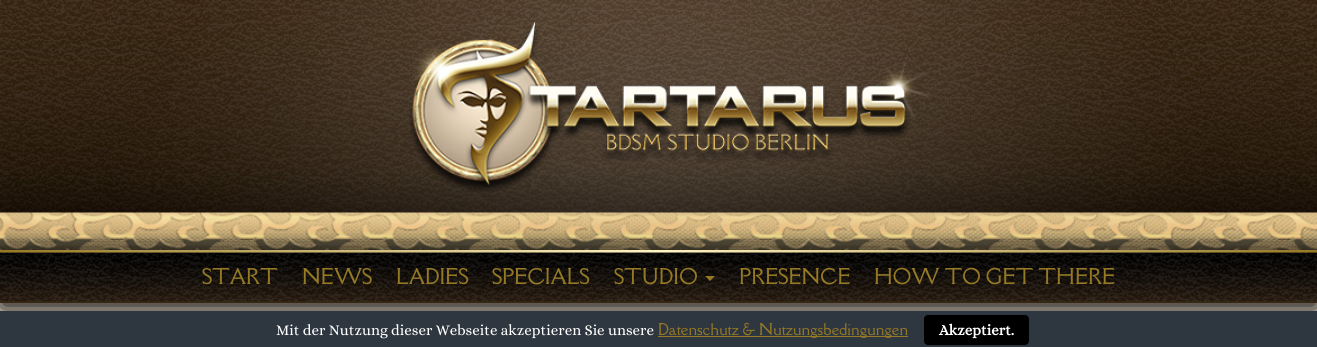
#include <cairo/cairo.h>
#include <math.h>
#include <stddef.h>


static void rounded_rect(cairo_t *cr, double x, double y, double w, double h, double r) {
  cairo_new_sub_path(cr);
  cairo_arc(cr, x + w - r, y + h - r, r, 0, M_PI / 2);
  cairo_arc(cr, x + r, y + h - r, r, M_PI / 2, M_PI);
  cairo_arc(cr, x + r, y + r, r, M_PI, 1.5 * M_PI);
  cairo_arc(cr, x + w - r, y + r, r, 1.5 * M_PI, 2 * M_PI);
  cairo_close_path(cr);
}

static void draw_shadow(cairo_t *cr, double x, double y, double w, double h, double r, double blur, double alpha) {
  cairo_push_group_with_content(cr, CAIRO_CONTENT_ALPHA);
  cairo_set_operator(cr, CAIRO_OPERATOR_SOURCE);
  for (int i = 15; i >= -15 && fmin(w, h) + blur * i / 3 > 0; i -= 2) {
    double e = blur * i / 6;
    cairo_set_source_rgba(cr, 0, 0, 0, alpha * erfc((i - 1) / 8.5) / 2);
    rounded_rect(cr, x - e, y - e, w + 2 * e, h + 2 * e, fmax(0, fmin(r + e + blur * .6, fmin(w, h) / 2 + e)));
    cairo_fill(cr);
  }
  cairo_pattern_t *soft = cairo_pop_group(cr);
  cairo_mask(cr, soft);
  cairo_pattern_destroy(soft);
}

static void draw_image(cairo_t *cr, const char *path, double x, double y, double w, double h) {
  cairo_surface_t *image = cairo_image_surface_create_from_png(path);
  cairo_save(cr);
  cairo_set_source_surface(cr, image, x, y);
  cairo_rectangle(cr, x, y, w, h);
  cairo_fill(cr);
  cairo_restore(cr);
  cairo_surface_destroy(image);
}

static void draw(cairo_t *cr) {
  cairo_set_source_rgb(cr, 1, 241 / 255.0, 222 / 255.0);
  cairo_paint(cr);
  draw_image(cr, "images/1.png", 0, 0, 1317, 250);
  draw_image(cr, "images/2.png", 409, 21, 524, 171);
  cairo_set_source_rgb(cr, 0, 0, 0);
  draw_shadow(cr, 0, 256, 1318, 53, 0, 12.5, 1);
  cairo_set_source_rgb(cr, 57 / 255.0, 39 / 255.0, 21 / 255.0);
  cairo_rectangle(cr, 0, 252, 1317, 51);
  cairo_fill(cr);
  draw_image(cr, "images/3.png", 0, 252, 1317, 50);
  draw_image(cr, "images/4.png", 0, 250, 1317, 3);
  cairo_set_source_rgb(cr, 149 / 255.0, 121 / 255.0, 37 / 255.0);
  cairo_new_path(cr);
  cairo_move_to(cr, 705, 276);
  cairo_line_to(cr, 715, 276);
  cairo_line_to(cr, 710, 281);
  cairo_close_path(cr);
  cairo_fill(cr);
  cairo_set_source_rgb(cr, 46 / 255.0, 54 / 255.0, 63 / 255.0);
  cairo_rectangle(cr, 0, 311, 1317, 36);
  cairo_fill(cr);
  cairo_set_source_rgb(cr, 149 / 255.0, 121 / 255.0, 37 / 255.0);
  cairo_rectangle(cr, 658, 336, 250, 1);
  cairo_fill(cr);
  cairo_set_source_rgb(cr, 0, 0, 0);
  rounded_rect(cr, 924, 315, 105, 30, 4);
  cairo_fill(cr);
  cairo_select_font_face(cr, "Della Respira", CAIRO_FONT_SLANT_NORMAL, CAIRO_FONT_WEIGHT_NORMAL);
  cairo_set_font_size(cr, 20);
  cairo_set_source_rgb(cr, 149 / 255.0, 121 / 255.0, 37 / 255.0);
  cairo_move_to(cr, 202, 284);
  cairo_show_text(cr, "START");
  cairo_move_to(cr, 302, 284);
  cairo_show_text(cr, "NEWS");
  cairo_move_to(cr, 396, 284);
  cairo_show_text(cr, "LADIES");
  cairo_move_to(cr, 492, 284);
  cairo_show_text(cr, "SPECIALS");
  cairo_move_to(cr, 614, 284);
  cairo_show_text(cr, "STUDIO");
  cairo_move_to(cr, 739, 284);
  cairo_show_text(cr, "PRESENCE");
  cairo_move_to(cr, 874, 284);
  cairo_show_text(cr, "HOW TO GET THERE");
  cairo_select_font_face(cr, "Alice", CAIRO_FONT_SLANT_NORMAL, CAIRO_FONT_WEIGHT_NORMAL);
  cairo_set_font_size(cr, 15);
  cairo_set_source_rgb(cr, 1, 1, 1);
  cairo_move_to(cr, 276, 335);
  cairo_show_text(cr, "Mit der Nutzung dieser Webseite akzeptieren Sie unsere");
  cairo_select_font_face(cr, "Della Respira", CAIRO_FONT_SLANT_NORMAL, CAIRO_FONT_WEIGHT_NORMAL);
  cairo_set_source_rgb(cr, 149 / 255.0, 121 / 255.0, 37 / 255.0);
  cairo_move_to(cr, 658, 335);
  cairo_show_text(cr, "Datenschutz & Nutzungsbedingungen");
  cairo_select_font_face(cr, "Alice", CAIRO_FONT_SLANT_NORMAL, CAIRO_FONT_WEIGHT_BOLD);
  cairo_set_source_rgb(cr, 1, 1, 1);
  cairo_move_to(cr, 939, 335);
  cairo_show_text(cr, "Akzeptiert.");
}

int main(void) {
  cairo_surface_t *surface = cairo_image_surface_create(CAIRO_FORMAT_RGB24, 1317, 347);
  cairo_t *cr = cairo_create(surface);
  cairo_font_options_t *options = cairo_font_options_create();
  cairo_font_options_set_hint_metrics(options, CAIRO_HINT_METRICS_OFF);
  cairo_font_options_set_hint_style(options, CAIRO_HINT_STYLE_NONE);
  cairo_set_font_options(cr, options);
  cairo_set_miter_limit(cr, 4);
  draw(cr);
  cairo_surface_write_to_png(surface, "out.png");
  cairo_font_options_destroy(options);
  cairo_destroy(cr);
  cairo_surface_destroy(surface);
  return 0;
}
